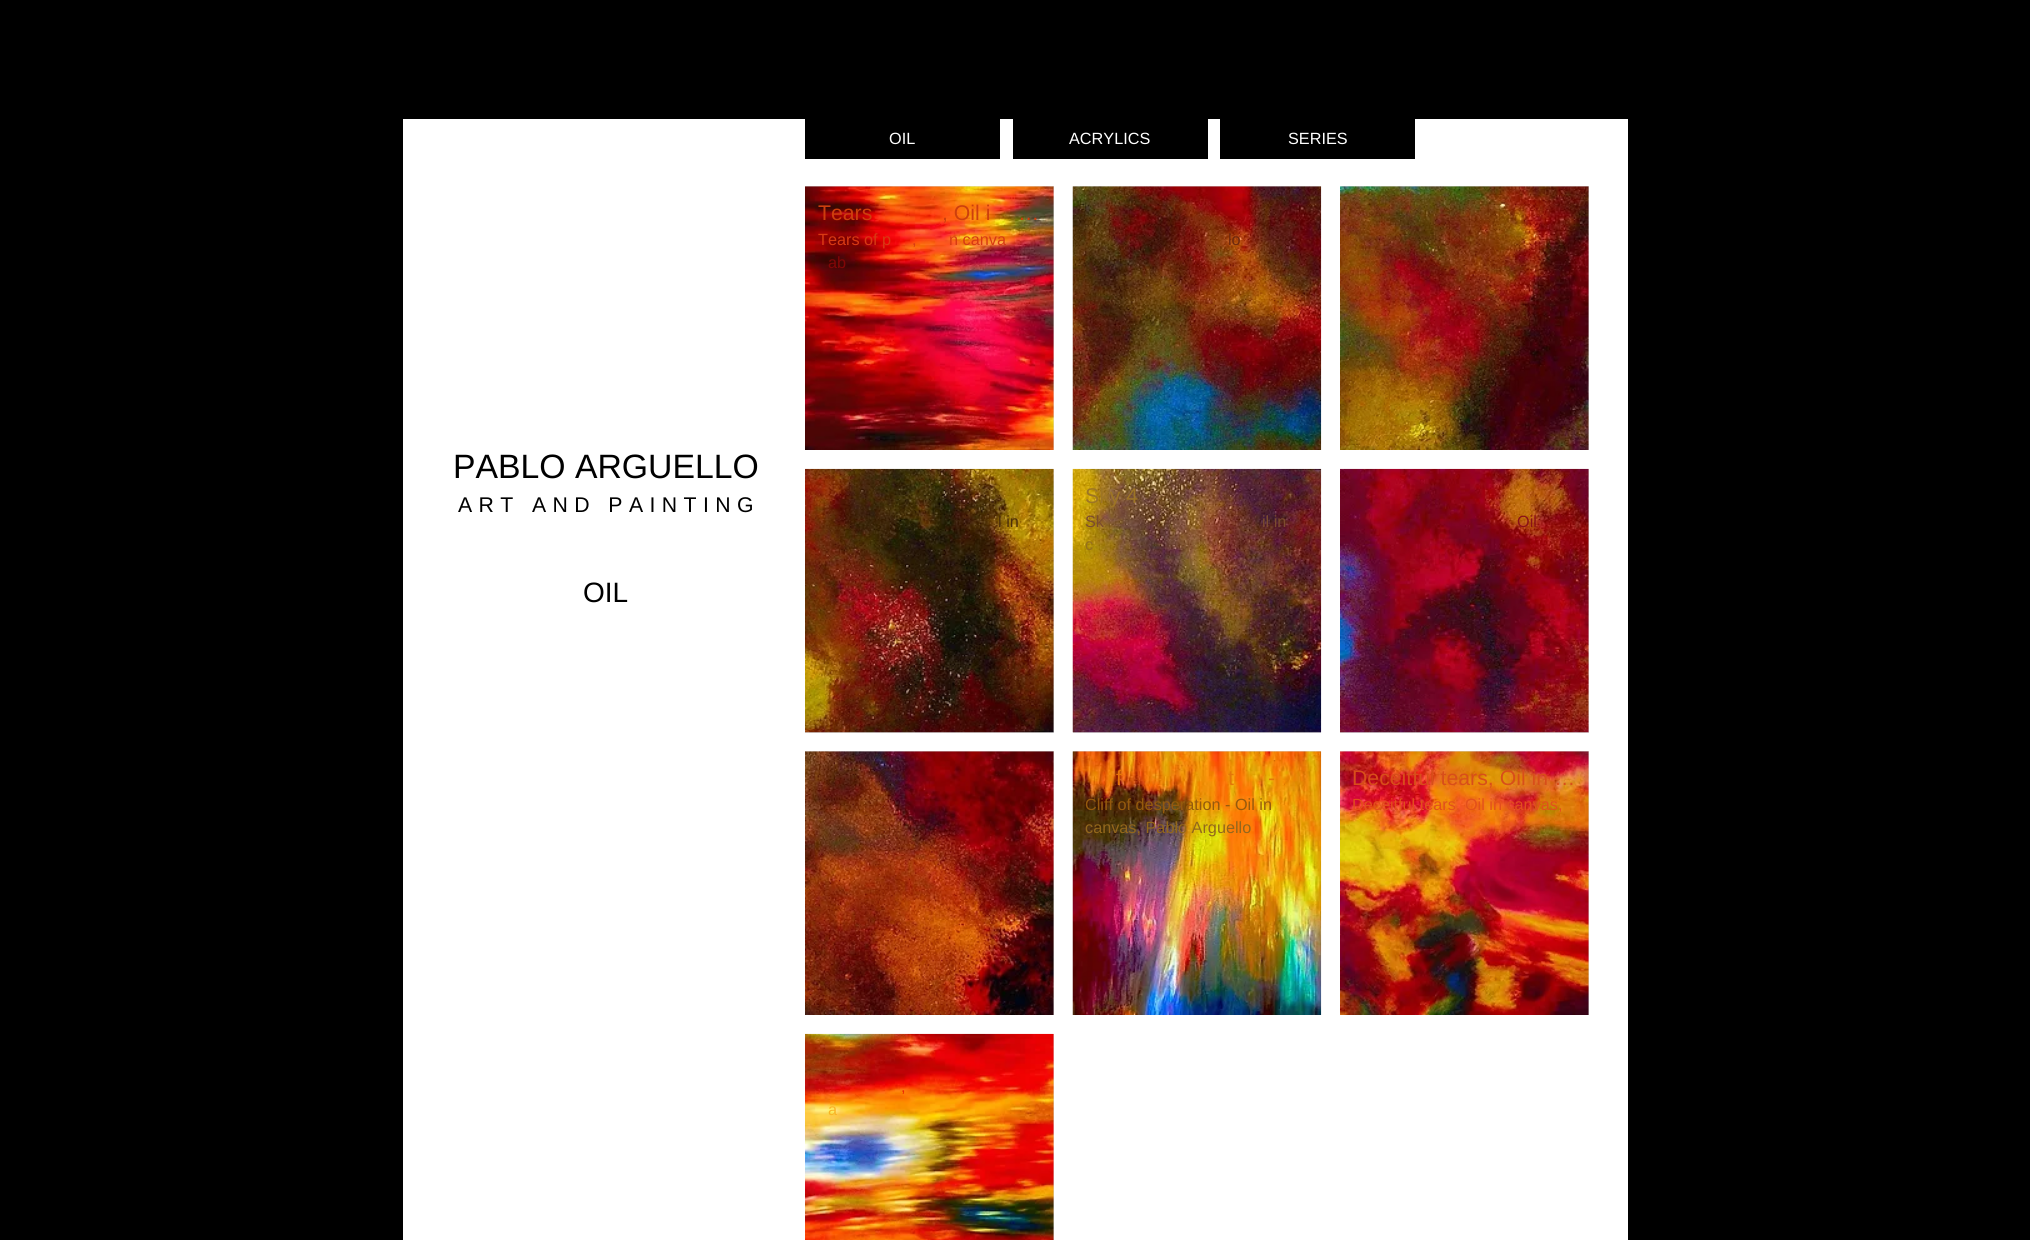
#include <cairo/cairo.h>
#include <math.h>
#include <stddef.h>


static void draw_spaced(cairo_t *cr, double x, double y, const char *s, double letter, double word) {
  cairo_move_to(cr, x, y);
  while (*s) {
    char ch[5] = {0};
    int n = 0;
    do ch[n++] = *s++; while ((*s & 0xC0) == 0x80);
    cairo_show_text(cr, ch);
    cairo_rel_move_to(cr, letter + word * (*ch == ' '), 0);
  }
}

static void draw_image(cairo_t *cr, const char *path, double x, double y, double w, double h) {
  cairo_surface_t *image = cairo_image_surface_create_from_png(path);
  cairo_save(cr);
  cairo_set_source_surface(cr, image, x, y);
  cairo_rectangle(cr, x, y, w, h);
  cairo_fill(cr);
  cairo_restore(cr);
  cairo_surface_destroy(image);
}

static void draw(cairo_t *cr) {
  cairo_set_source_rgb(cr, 0, 0, 0);
  cairo_paint(cr);
  cairo_set_source_rgb(cr, 1, 1, 1);
  cairo_rectangle(cr, 403, 119, 1225, 1121);
  cairo_fill(cr);
  cairo_set_source_rgb(cr, 0, 0, 0);
  cairo_rectangle(cr, 805, 119, 195, 40);
  cairo_fill(cr);
  cairo_rectangle(cr, 1013, 119, 195, 40);
  cairo_fill(cr);
  cairo_rectangle(cr, 1220, 119, 195, 40);
  cairo_fill(cr);
  cairo_set_source_rgb(cr, 216 / 255.0, 216 / 255.0, 216 / 255.0);
  cairo_rectangle(cr, 805, 186, 249, 264);
  cairo_fill(cr);
  draw_image(cr, "images/1.png", 805, 186, 249, 264);
  cairo_rectangle(cr, 1073, 186, 248, 1);
  cairo_fill(cr);
  draw_image(cr, "images/2.png", 1072, 186, 250, 264);
  cairo_rectangle(cr, 1340, 186, 249, 264);
  cairo_fill(cr);
  draw_image(cr, "images/3.png", 1340, 186, 249, 264);
  cairo_rectangle(cr, 805, 469, 249, 264);
  cairo_fill(cr);
  draw_image(cr, "images/4.png", 805, 468, 249, 265);
  cairo_rectangle(cr, 1073, 732, 248, 1);
  cairo_fill(cr);
  draw_image(cr, "images/5.png", 1072, 468, 250, 265);
  cairo_rectangle(cr, 1340, 469, 249, 264);
  cairo_fill(cr);
  draw_image(cr, "images/6.png", 1340, 468, 249, 265);
  cairo_rectangle(cr, 805, 751, 249, 264);
  cairo_fill(cr);
  draw_image(cr, "images/7.png", 805, 751, 249, 264);
  cairo_rectangle(cr, 1073, 751, 248, 1);
  cairo_fill(cr);
  draw_image(cr, "images/8.png", 1072, 751, 250, 264);
  cairo_rectangle(cr, 1340, 751, 249, 264);
  cairo_fill(cr);
  draw_image(cr, "images/9.png", 1340, 751, 249, 264);
  cairo_rectangle(cr, 1053, 1034, 1, 206);
  cairo_fill(cr);
  draw_image(cr, "images/10.png", 805, 1033, 249, 207);
  cairo_select_font_face(cr, "Liberation Sans", CAIRO_FONT_SLANT_NORMAL, CAIRO_FONT_WEIGHT_NORMAL);
  cairo_set_font_size(cr, 16.25);
  cairo_set_source_rgb(cr, 1, 1, 1);
  cairo_move_to(cr, 889, 144);
  cairo_show_text(cr, "OIL");
  cairo_move_to(cr, 1069, 144);
  cairo_show_text(cr, "ACRYLICS");
  cairo_move_to(cr, 1288, 144);
  cairo_show_text(cr, "SERIES");
  cairo_set_font_size(cr, 33.75);
  cairo_set_source_rgb(cr, 0, 0, 0);
  cairo_move_to(cr, 453, 478);
  cairo_show_text(cr, "PABLO ARGUELLO");
  cairo_set_font_size(cr, 21.25);
  draw_spaced(cr, 458, 512, "ART AND PAINTING", 6.4, 0);
  cairo_set_source_rgb(cr, 205 / 255.0, 63 / 255.0, 13 / 255.0);
  cairo_move_to(cr, 818, 220);
  cairo_show_text(cr, "Tears");
  cairo_move_to(cr, 942, 220);
  cairo_show_text(cr, ", Oil i");
  cairo_move_to(cr, 1018, 220);
  cairo_show_text(cr, "…");
  cairo_set_font_size(cr, 16.25);
  cairo_set_source_rgb(cr, 216 / 255.0, 58 / 255.0, 19 / 255.0);
  cairo_move_to(cr, 818, 245);
  cairo_show_text(cr, "Tears of p");
  cairo_move_to(cr, 912, 245);
  cairo_show_text(cr, ",");
  cairo_move_to(cr, 949, 245);
  cairo_show_text(cr, "n canva");
  cairo_set_source_rgb(cr, 130 / 255.0, 6 / 255.0, 7 / 255.0);
  cairo_move_to(cr, 828, 268);
  cairo_show_text(cr, "ab");
  cairo_set_source_rgb(cr, 109 / 255.0, 41 / 255.0, 15 / 255.0);
  cairo_move_to(cr, 1228, 245);
  cairo_show_text(cr, "lo");
  cairo_set_source_rgb(cr, 77 / 255.0, 46 / 255.0, 10 / 255.0);
  cairo_move_to(cr, 998, 527);
  cairo_show_text(cr, "l in");
  cairo_set_font_size(cr, 21.25);
  cairo_set_source_rgb(cr, 157 / 255.0, 117 / 255.0, 37 / 255.0);
  cairo_move_to(cr, 1085, 503);
  cairo_show_text(cr, "Sky 4");
  cairo_set_font_size(cr, 16.25);
  cairo_set_source_rgb(cr, 124 / 255.0, 76 / 255.0, 46 / 255.0);
  cairo_move_to(cr, 1085, 527);
  cairo_show_text(cr, "Sk");
  cairo_move_to(cr, 1262, 527);
  cairo_show_text(cr, "il in");
  cairo_set_source_rgb(cr, 149 / 255.0, 111 / 255.0, 30 / 255.0);
  cairo_move_to(cr, 1085, 550);
  cairo_show_text(cr, "c");
  cairo_set_source_rgb(cr, 140 / 255.0, 15 / 255.0, 24 / 255.0);
  cairo_move_to(cr, 1517, 527);
  cairo_show_text(cr, "Oil");
  cairo_set_font_size(cr, 21.25);
  cairo_set_source_rgb(cr, 228 / 255.0, 117 / 255.0, 9 / 255.0);
  cairo_move_to(cr, 1116, 785);
  cairo_show_text(cr, "f");
  cairo_move_to(cr, 1228, 785);
  cairo_show_text(cr, "t");
  cairo_move_to(cr, 1268, 785);
  cairo_show_text(cr, "-");
  cairo_set_font_size(cr, 16.25);
  cairo_set_source_rgb(cr, 149 / 255.0, 90 / 255.0, 13 / 255.0);
  cairo_move_to(cr, 1085, 810);
  cairo_show_text(cr, "Cliff of desperation - Oil in");
  cairo_set_source_rgb(cr, 147 / 255.0, 103 / 255.0, 28 / 255.0);
  cairo_move_to(cr, 1085, 833);
  cairo_show_text(cr, "canvas, Pablo Arguello");
  cairo_set_font_size(cr, 21.25);
  cairo_set_source_rgb(cr, 216 / 255.0, 78 / 255.0, 26 / 255.0);
  cairo_move_to(cr, 1352, 785);
  cairo_show_text(cr, "Deceitful tears, Oil in …");
  cairo_set_font_size(cr, 16.25);
  cairo_set_source_rgb(cr, 226 / 255.0, 79 / 255.0, 28 / 255.0);
  cairo_move_to(cr, 1352, 810);
  cairo_show_text(cr, "Deceitful tears, Oil in canvas,");
  cairo_set_source_rgb(cr, 238 / 255.0, 39 / 255.0, 6 / 255.0);
  cairo_move_to(cr, 901, 1092);
  cairo_show_text(cr, ",");
  cairo_set_source_rgb(cr, 249 / 255.0, 180 / 255.0, 38 / 255.0);
  cairo_move_to(cr, 828, 1115);
  cairo_show_text(cr, "a");
  cairo_set_font_size(cr, 28);
  cairo_set_source_rgb(cr, 0, 0, 0);
  cairo_move_to(cr, 583, 602);
  cairo_show_text(cr, "OIL");
}

int main(void) {
  cairo_surface_t *surface = cairo_image_surface_create(CAIRO_FORMAT_RGB24, 2030, 1240);
  cairo_t *cr = cairo_create(surface);
  cairo_font_options_t *options = cairo_font_options_create();
  cairo_font_options_set_hint_metrics(options, CAIRO_HINT_METRICS_OFF);
  cairo_font_options_set_hint_style(options, CAIRO_HINT_STYLE_NONE);
  cairo_set_font_options(cr, options);
  cairo_set_miter_limit(cr, 4);
  draw(cr);
  cairo_surface_write_to_png(surface, "out.png");
  cairo_font_options_destroy(options);
  cairo_destroy(cr);
  cairo_surface_destroy(surface);
  return 0;
}
